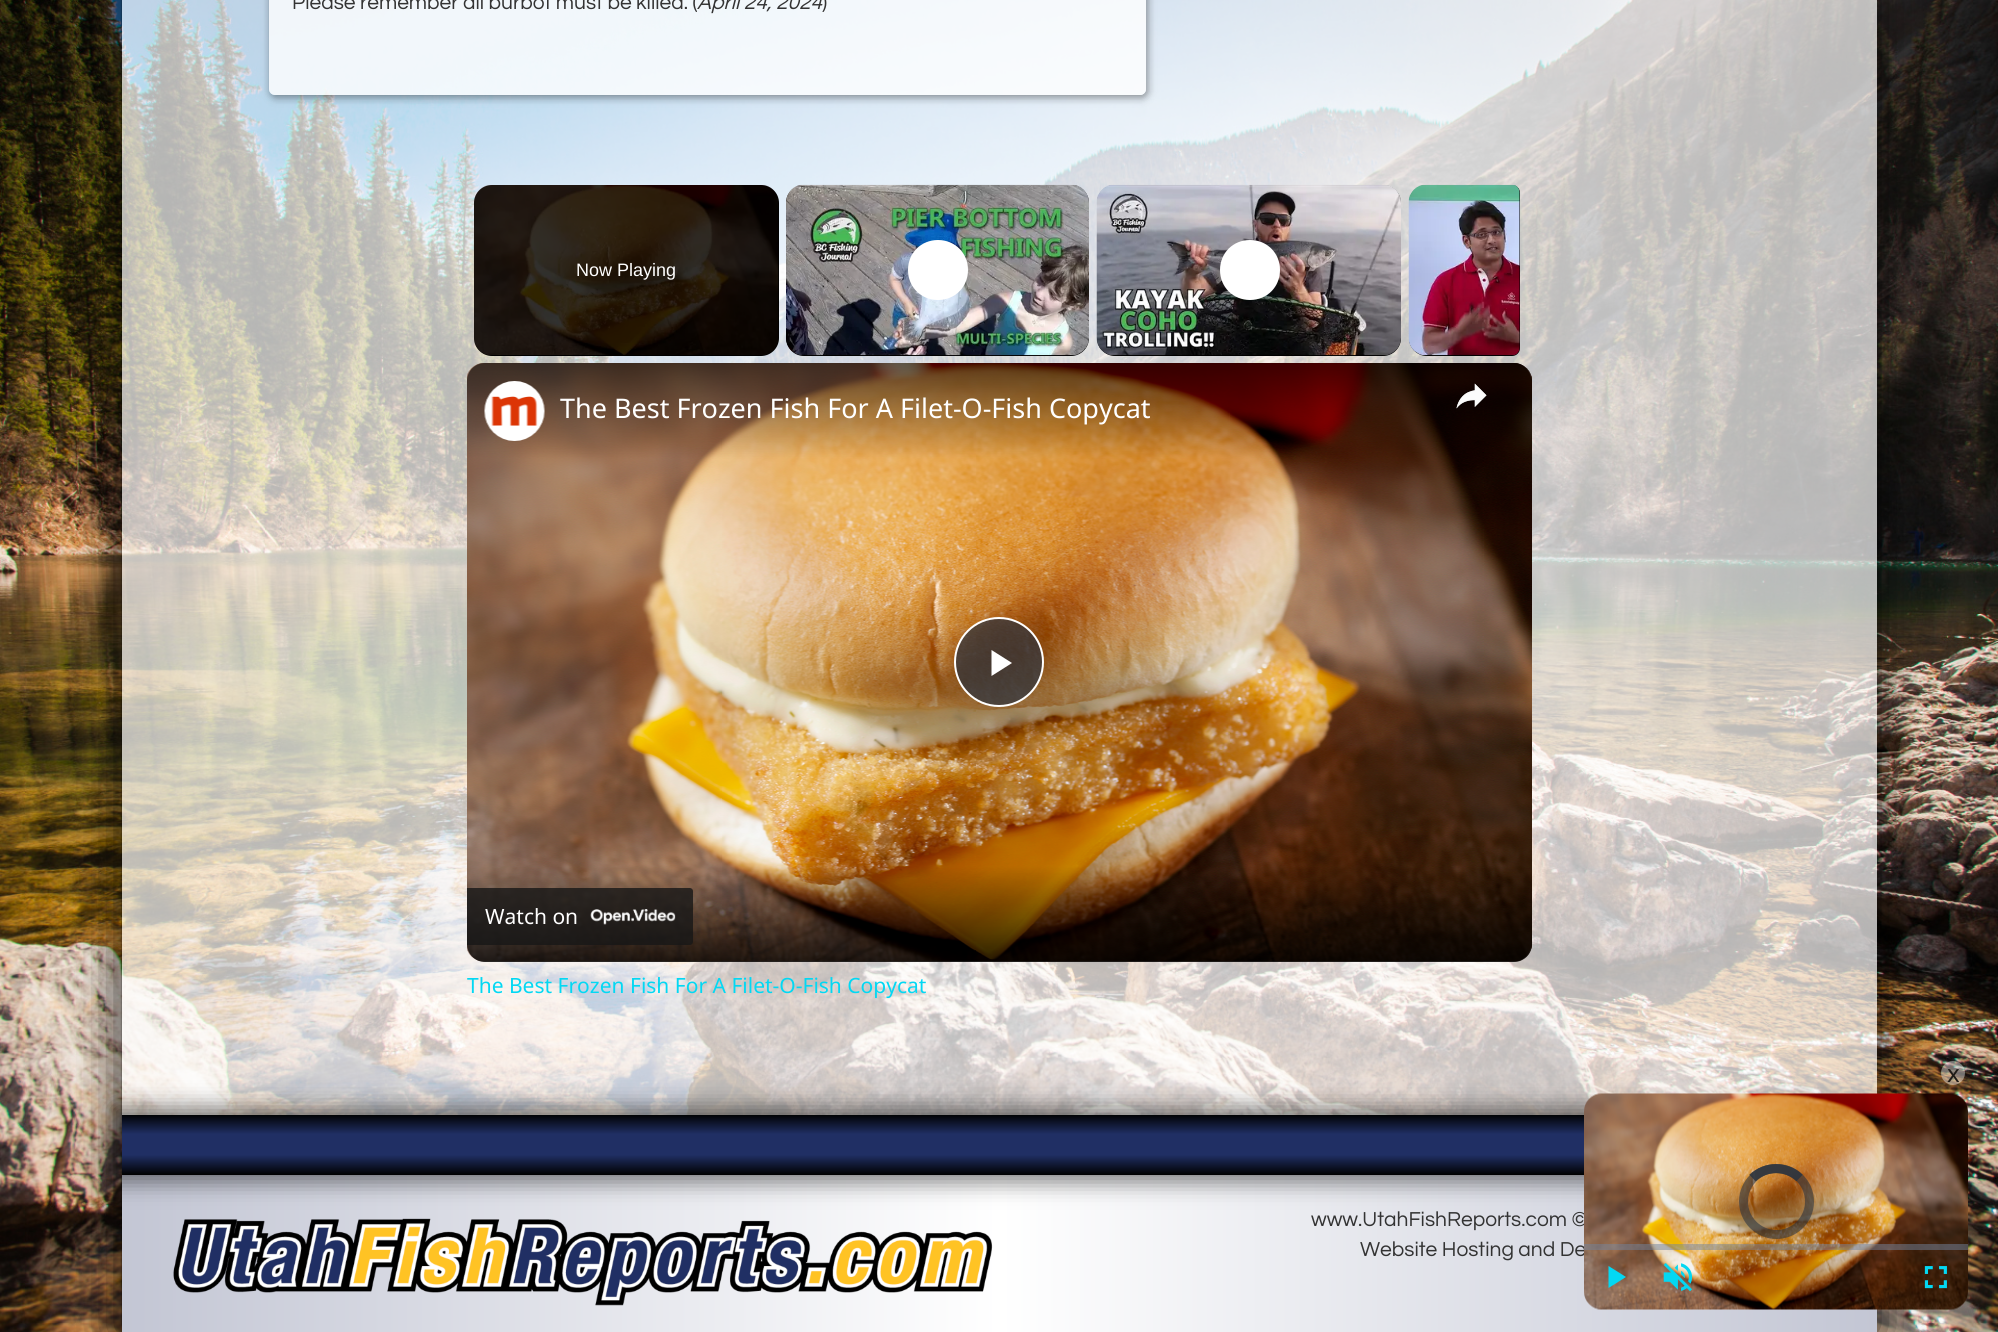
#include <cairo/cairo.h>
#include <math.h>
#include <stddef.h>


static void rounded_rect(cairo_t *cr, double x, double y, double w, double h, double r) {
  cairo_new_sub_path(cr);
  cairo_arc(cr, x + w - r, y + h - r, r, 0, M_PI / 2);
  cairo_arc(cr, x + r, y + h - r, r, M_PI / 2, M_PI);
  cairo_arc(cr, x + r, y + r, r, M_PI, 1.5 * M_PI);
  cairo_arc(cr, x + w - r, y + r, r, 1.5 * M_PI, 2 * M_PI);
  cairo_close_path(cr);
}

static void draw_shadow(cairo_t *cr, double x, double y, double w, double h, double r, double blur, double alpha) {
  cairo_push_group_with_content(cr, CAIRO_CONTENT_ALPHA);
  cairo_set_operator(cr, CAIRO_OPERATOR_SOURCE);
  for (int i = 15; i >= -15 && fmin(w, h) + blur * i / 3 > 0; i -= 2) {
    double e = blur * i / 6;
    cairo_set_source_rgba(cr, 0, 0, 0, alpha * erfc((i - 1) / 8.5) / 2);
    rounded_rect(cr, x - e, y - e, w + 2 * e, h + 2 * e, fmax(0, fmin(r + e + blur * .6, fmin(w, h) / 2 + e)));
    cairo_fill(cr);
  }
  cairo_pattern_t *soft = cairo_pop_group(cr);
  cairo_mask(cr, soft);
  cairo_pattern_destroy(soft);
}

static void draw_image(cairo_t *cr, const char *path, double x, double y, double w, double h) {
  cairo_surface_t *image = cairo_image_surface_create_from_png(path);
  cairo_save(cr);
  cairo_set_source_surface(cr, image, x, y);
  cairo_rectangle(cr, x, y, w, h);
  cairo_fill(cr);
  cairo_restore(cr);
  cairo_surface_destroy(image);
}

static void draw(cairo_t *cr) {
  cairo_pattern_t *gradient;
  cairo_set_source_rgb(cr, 1, 1, 1);
  cairo_paint(cr);
  draw_image(cr, "images/1.png", 0, 0, 1998, 1332);
  cairo_save(cr);
  cairo_set_fill_rule(cr, CAIRO_FILL_RULE_EVEN_ODD);
  cairo_new_path(cr);
  cairo_move_to(cr, 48, 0);
  cairo_line_to(cr, 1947, 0);
  cairo_line_to(cr, 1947, 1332);
  cairo_line_to(cr, 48, 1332);
  cairo_close_path(cr);
  cairo_move_to(cr, 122, -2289);
  cairo_line_to(cr, 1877, -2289);
  cairo_line_to(cr, 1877, 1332);
  cairo_line_to(cr, 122, 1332);
  cairo_close_path(cr);
  cairo_clip(cr);
  cairo_set_source_rgb(cr, 0, 0, 0);
  draw_shadow(cr, 117, -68, 1761, 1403, 0, 22.5, 0.8);
  cairo_restore(cr);
  cairo_set_source_rgba(cr, 1, 1, 1, 0.7);
  cairo_rectangle(cr, 122, 0, 1755, 1115);
  cairo_fill(cr);
  cairo_save(cr);
  cairo_set_fill_rule(cr, CAIRO_FILL_RULE_EVEN_ODD);
  cairo_new_path(cr);
  cairo_move_to(cr, 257, 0);
  cairo_line_to(cr, 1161, 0);
  cairo_line_to(cr, 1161, 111);
  cairo_line_to(cr, 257, 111);
  cairo_close_path(cr);
  cairo_move_to(cr, 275, -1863);
  cairo_line_to(cr, 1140, -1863);
  cairo_curve_to(cr, 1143.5, -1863, 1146, -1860.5, 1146, -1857);
  cairo_line_to(cr, 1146, 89);
  cairo_curve_to(cr, 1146, 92.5, 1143.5, 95, 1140, 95);
  cairo_line_to(cr, 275, 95);
  cairo_curve_to(cr, 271.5, 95, 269, 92.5, 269, 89);
  cairo_line_to(cr, 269, -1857);
  cairo_curve_to(cr, 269, -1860.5, 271.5, -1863, 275, -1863);
  cairo_close_path(cr);
  cairo_clip(cr);
  cairo_set_source_rgb(cr, 6 / 255.0, 6 / 255.0, 6 / 255.0);
  draw_shadow(cr, 270, -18, 878, 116, 6, 4, 0.4);
  cairo_restore(cr);
  cairo_set_source_rgba(cr, 1, 1, 1, 0.8);
  rounded_rect(cr, 269, -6, 877, 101, 6);
  cairo_fill(cr);
  cairo_set_source_rgb(cr, 0, 0, 0);
  rounded_rect(cr, 474, 185, 305, 171, 18);
  cairo_fill(cr);
  draw_image(cr, "images/2.png", 474, 185, 305, 170);
  rounded_rect(cr, 786, 185, 303, 171, 18);
  cairo_fill(cr);
  draw_image(cr, "images/3.png", 786, 184, 303, 172);
  cairo_set_source_rgb(cr, 1, 1, 1);
  cairo_new_path(cr);
  cairo_move_to(cr, 938, 240);
  cairo_curve_to(cr, 921, 240, 908, 253, 908, 270);
  cairo_curve_to(cr, 908, 287, 921, 300, 938, 300);
  cairo_curve_to(cr, 955, 300, 968, 287, 968, 270);
  cairo_curve_to(cr, 968, 253, 955, 240, 938, 240);
  cairo_close_path(cr);
  cairo_fill(cr);
  cairo_set_source_rgb(cr, 0, 0, 0);
  rounded_rect(cr, 1097, 185, 304, 171, 18);
  cairo_fill(cr);
  draw_image(cr, "images/4.png", 1096, 184, 305, 172);
  cairo_set_source_rgb(cr, 1, 1, 1);
  cairo_new_path(cr);
  cairo_move_to(cr, 1250, 240);
  cairo_curve_to(cr, 1233, 240, 1220, 253, 1220, 270);
  cairo_curve_to(cr, 1220, 287, 1233, 300, 1250, 300);
  cairo_curve_to(cr, 1267, 300, 1280, 287, 1280, 270);
  cairo_curve_to(cr, 1280, 253, 1267, 240, 1250, 240);
  cairo_close_path(cr);
  cairo_fill(cr);
  cairo_set_source_rgb(cr, 0, 0, 0);
  cairo_new_path(cr);
  cairo_move_to(cr, 1427, 185);
  cairo_line_to(cr, 1512, 185);
  cairo_curve_to(cr, 1516.5, 185, 1520, 188.5, 1520, 193);
  cairo_line_to(cr, 1520, 348);
  cairo_curve_to(cr, 1520, 352.5, 1516.5, 356, 1512, 356);
  cairo_line_to(cr, 1427, 356);
  cairo_curve_to(cr, 1417, 356, 1409, 348, 1409, 338);
  cairo_line_to(cr, 1409, 203);
  cairo_curve_to(cr, 1409, 193, 1417, 185, 1427, 185);
  cairo_close_path(cr);
  cairo_fill(cr);
  draw_image(cr, "images/5.png", 1408, 184, 112, 172);
  cairo_set_source_rgba(cr, 1, 1, 1, 0.4);
  cairo_arc(cr, 1953, 1073, 12, 0, 2 * M_PI);
  cairo_fill(cr);
  cairo_arc(cr, 1517, 375, 12, 0, 2 * M_PI);
  cairo_fill(cr);
  draw_image(cr, "images/9.png", 467, 363, 1065, 599);
  draw_image(cr, "images/10.png", 467, 363, 1065, 599);
  cairo_set_source_rgba(cr, 43 / 255.0, 51 / 255.0, 63 / 255.0, 0.7);
  cairo_arc(cr, 999, 662, 44, 0, 2 * M_PI);
  cairo_fill_preserve(cr);
  cairo_set_source_rgb(cr, 1, 1, 1);
  cairo_stroke(cr);
  cairo_new_path(cr);
  cairo_move_to(cr, 991.5, 650);
  cairo_line_to(cr, 991.5, 676);
  cairo_line_to(cr, 1012, 663);
  cairo_close_path(cr);
  cairo_fill(cr);
  gradient = cairo_pattern_create_linear(999, 363, 999, 962);
  cairo_pattern_add_color_stop_rgba(gradient, 0, 0, 0, 0, 0.6);
  cairo_pattern_add_color_stop_rgba(gradient, 0.16, 0, 0, 0, 0);
  cairo_pattern_add_color_stop_rgba(gradient, 0.84, 0, 0, 0, 0);
  cairo_pattern_add_color_stop_rgba(gradient, 1, 0, 0, 0, 0.8);
  cairo_set_source(cr, gradient);
  cairo_pattern_destroy(gradient);
  rounded_rect(cr, 467, 363, 1065, 599, 18);
  cairo_fill(cr);
  draw_image(cr, "images/11.png", 484, 381, 61, 60);
  draw_image(cr, "images/12.png", 1456, 383, 31, 26);
  cairo_set_source_rgba(cr, 23 / 255.0, 23 / 255.0, 23 / 255.0, 0.8);
  cairo_new_path(cr);
  cairo_move_to(cr, 467, 888);
  cairo_line_to(cr, 690, 888);
  cairo_curve_to(cr, 691.5, 888, 693, 889.5, 693, 891);
  cairo_line_to(cr, 693, 942);
  cairo_curve_to(cr, 693, 943.5, 691.5, 945, 690, 945);
  cairo_line_to(cr, 467, 945);
  cairo_close_path(cr);
  cairo_fill(cr);
  draw_image(cr, "images/13.png", 590, 909, 86, 16);
  gradient = cairo_pattern_create_linear(122, 1253, 1877, 1253);
  cairo_pattern_add_color_stop_rgba(gradient, 0, 195 / 255.0, 198 / 255.0, 212 / 255.0, 1);
  cairo_pattern_add_color_stop_rgba(gradient, 0.5, 1, 1, 1, 1);
  cairo_pattern_add_color_stop_rgba(gradient, 1, 195 / 255.0, 198 / 255.0, 212 / 255.0, 1);
  cairo_set_source(cr, gradient);
  cairo_pattern_destroy(gradient);
  cairo_rectangle(cr, 122, 1175, 1755, 157);
  cairo_fill(cr);
  cairo_set_source_rgb(cr, 0, 0, 0);
  draw_shadow(cr, 114, 1107, 1770, 75, 0, 11, 0.5);
  gradient = cairo_pattern_create_linear(999, 1114, 999, 1175);
  cairo_pattern_add_color_stop_rgba(gradient, 0, 0, 0, 0, 1);
  cairo_pattern_add_color_stop_rgba(gradient, 0.33, 32 / 255.0, 47 / 255.0, 100 / 255.0, 1);
  cairo_pattern_add_color_stop_rgba(gradient, 0.67, 32 / 255.0, 47 / 255.0, 100 / 255.0, 1);
  cairo_pattern_add_color_stop_rgba(gradient, 1, 0, 0, 0, 1);
  cairo_set_source(cr, gradient);
  cairo_pattern_destroy(gradient);
  cairo_rectangle(cr, 122, 1115, 1462, 60);
  cairo_fill(cr);
  draw_image(cr, "images/14.png", 173, 1218, 820, 88);
  cairo_select_font_face(cr, "Questrial", CAIRO_FONT_SLANT_NORMAL, CAIRO_FONT_WEIGHT_NORMAL);
  cairo_set_font_size(cr, 21);
  cairo_set_source_rgb(cr, 51 / 255.0, 51 / 255.0, 51 / 255.0);
  cairo_move_to(cr, 292, 9);
  cairo_show_text(cr, "Please remember all burbot must be killed. (");
  cairo_select_font_face(cr, "Questrial", CAIRO_FONT_SLANT_ITALIC, CAIRO_FONT_WEIGHT_NORMAL);
  cairo_move_to(cr, 697, 9);
  cairo_show_text(cr, "April 24, 2024");
  cairo_select_font_face(cr, "Questrial", CAIRO_FONT_SLANT_NORMAL, CAIRO_FONT_WEIGHT_NORMAL);
  cairo_move_to(cr, 822, 9);
  cairo_show_text(cr, ")");
  cairo_select_font_face(cr, "Liberation Sans", CAIRO_FONT_SLANT_NORMAL, CAIRO_FONT_WEIGHT_NORMAL);
  cairo_set_font_size(cr, 18);
  cairo_set_source_rgb(cr, 1, 1, 1);
  cairo_move_to(cr, 576, 276);
  cairo_show_text(cr, "Now Playing");
  cairo_select_font_face(cr, "Noto Sans", CAIRO_FONT_SLANT_NORMAL, CAIRO_FONT_WEIGHT_NORMAL);
  cairo_set_font_size(cr, 24);
  cairo_set_source_rgb(cr, 31 / 255.0, 28 / 255.0, 24 / 255.0);
  cairo_move_to(cr, 1947, 1082);
  cairo_show_text(cr, "x");
  cairo_save(cr);
  cairo_rectangle(cr, 560, 390, 870, 38);
  cairo_clip(cr);
  cairo_set_font_size(cr, 27);
  cairo_set_source_rgb(cr, 1, 1, 1);
  cairo_move_to(cr, 560, 418);
  cairo_show_text(cr, "The Best Frozen Fish For A Filet-O-Fish Copycat");
  cairo_restore(cr);
  cairo_set_font_size(cr, 21);
  cairo_set_source_rgb(cr, 1, 1, 1);
  cairo_move_to(cr, 485, 924);
  cairo_show_text(cr, "Watch on");
  cairo_set_source_rgb(cr, 3 / 255.0, 216 / 255.0, 243 / 255.0);
  cairo_move_to(cr, 467, 993);
  cairo_show_text(cr, "The Best Frozen Fish For A Filet-O-Fish Copycat");
  cairo_select_font_face(cr, "Questrial", CAIRO_FONT_SLANT_NORMAL, CAIRO_FONT_WEIGHT_NORMAL);
  cairo_set_source_rgb(cr, 51 / 255.0, 51 / 255.0, 51 / 255.0);
  cairo_move_to(cr, 1311, 1226);
  cairo_show_text(cr, "www.UtahFishReports.com ©");
  cairo_move_to(cr, 1360, 1256);
  cairo_show_text(cr, "Website Hosting and De");
  draw_image(cr, "images/6.png", 1584, 1093, 384, 217);
  cairo_set_source_rgba(cr, 115 / 255.0, 133 / 255.0, 159 / 255.0, 0.5);
  cairo_rectangle(cr, 1584, 1244, 384, 6);
  cairo_fill(cr);
  draw_image(cr, "images/8.png", 1924, 1266, 23, 23);
  draw_image(cr, "images/7.png", 1663, 1263, 30, 29);
  cairo_set_source_rgb(cr, 3 / 255.0, 216 / 255.0, 243 / 255.0);
  cairo_new_path(cr);
  cairo_move_to(cr, 1608.5, 1266);
  cairo_line_to(cr, 1608.5, 1288);
  cairo_line_to(cr, 1626, 1277);
  cairo_close_path(cr);
  cairo_fill(cr);
  cairo_arc(cr, 1776.5, 1201.5, 33, 0, 2 * M_PI);
  cairo_set_source_rgba(cr, 43 / 255.0, 51 / 255.0, 63 / 255.0, 0.59);
  cairo_set_line_width(cr, 9);
  cairo_stroke(cr);
  cairo_new_path(cr);
  cairo_move_to(cr, 1752.5, 1178);
  cairo_curve_to(cr, 1765.5, 1165.5, 1786.5, 1165.5, 1799.5, 1178);
  cairo_stroke(cr);
  cairo_new_path(cr);
  cairo_move_to(cr, 1752.5, 1178);
  cairo_curve_to(cr, 1765.5, 1165.5, 1786.5, 1165.5, 1799.5, 1178);
  cairo_stroke(cr);
}

int main(void) {
  cairo_surface_t *surface = cairo_image_surface_create(CAIRO_FORMAT_RGB24, 1998, 1332);
  cairo_t *cr = cairo_create(surface);
  cairo_font_options_t *options = cairo_font_options_create();
  cairo_font_options_set_hint_metrics(options, CAIRO_HINT_METRICS_OFF);
  cairo_font_options_set_hint_style(options, CAIRO_HINT_STYLE_NONE);
  cairo_set_font_options(cr, options);
  cairo_set_miter_limit(cr, 4);
  draw(cr);
  cairo_surface_write_to_png(surface, "out.png");
  cairo_font_options_destroy(options);
  cairo_destroy(cr);
  cairo_surface_destroy(surface);
  return 0;
}
